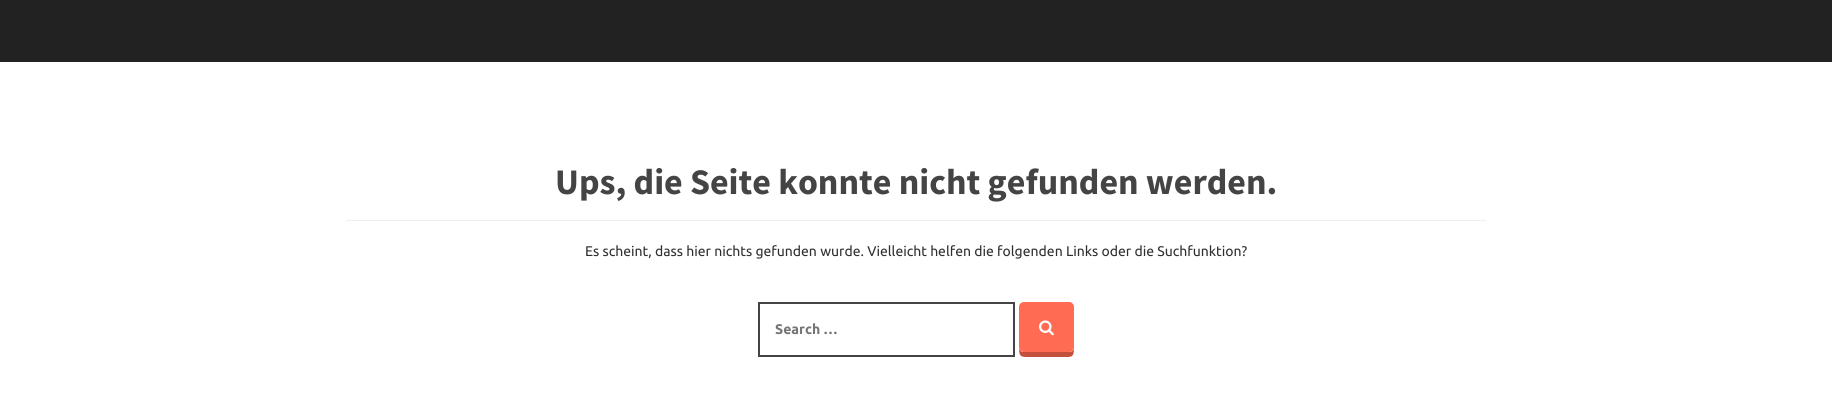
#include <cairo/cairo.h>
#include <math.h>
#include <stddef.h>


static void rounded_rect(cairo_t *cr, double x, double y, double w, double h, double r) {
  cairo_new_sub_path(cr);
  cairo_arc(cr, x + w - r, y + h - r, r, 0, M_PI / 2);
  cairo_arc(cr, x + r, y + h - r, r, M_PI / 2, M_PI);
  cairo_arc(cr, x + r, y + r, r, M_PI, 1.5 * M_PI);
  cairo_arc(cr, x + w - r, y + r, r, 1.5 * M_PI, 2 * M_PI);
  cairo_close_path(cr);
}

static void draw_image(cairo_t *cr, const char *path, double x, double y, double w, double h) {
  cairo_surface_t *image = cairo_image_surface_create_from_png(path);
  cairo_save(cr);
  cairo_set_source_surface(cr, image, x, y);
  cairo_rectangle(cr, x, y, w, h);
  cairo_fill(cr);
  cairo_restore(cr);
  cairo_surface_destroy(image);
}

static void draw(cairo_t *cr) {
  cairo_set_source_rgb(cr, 1, 1, 1);
  cairo_paint(cr);
  cairo_set_source_rgb(cr, 34 / 255.0, 34 / 255.0, 34 / 255.0);
  cairo_rectangle(cr, 0, 0, 1832, 62);
  cairo_fill(cr);
  cairo_set_source_rgb(cr, 238 / 255.0, 238 / 255.0, 238 / 255.0);
  cairo_rectangle(cr, 346, 220, 1140, 1);
  cairo_fill(cr);
  cairo_rectangle(cr, 759, 303, 255, 53);
  cairo_set_source_rgb(cr, 68 / 255.0, 68 / 255.0, 68 / 255.0);
  cairo_stroke(cr);
  cairo_set_source_rgb(cr, 194 / 255.0, 80 / 255.0, 61 / 255.0);
  cairo_new_path(cr);
  cairo_move_to(cr, 1019, 347);
  cairo_curve_to(cr, 1019, 358, 1021, 357, 1032, 357);
  cairo_line_to(cr, 1062, 357);
  cairo_curve_to(cr, 1072, 357, 1074, 358, 1074, 347);
  cairo_curve_to(cr, 1074, 350, 1072, 352, 1069, 352);
  cairo_line_to(cr, 1024, 352);
  cairo_curve_to(cr, 1021, 352, 1019, 350, 1019, 347);
  cairo_close_path(cr);
  cairo_fill(cr);
  cairo_set_source_rgb(cr, 1, 107 / 255.0, 83 / 255.0);
  rounded_rect(cr, 1019, 302, 55, 50, 5);
  cairo_fill(cr);
  draw_image(cr, "images/1.png", 1039, 320, 15, 16);
  cairo_select_font_face(cr, "Source Sans Pro", CAIRO_FONT_SLANT_NORMAL, CAIRO_FONT_WEIGHT_BOLD);
  cairo_set_font_size(cr, 36);
  cairo_set_source_rgb(cr, 68 / 255.0, 68 / 255.0, 68 / 255.0);
  cairo_move_to(cr, 555, 194);
  cairo_show_text(cr, "Ups, die Seite konnte nicht gefunden werden.");
  cairo_select_font_face(cr, "Ubuntu", CAIRO_FONT_SLANT_NORMAL, CAIRO_FONT_WEIGHT_NORMAL);
  cairo_set_font_size(cr, 14);
  cairo_set_source_rgb(cr, 48 / 255.0, 48 / 255.0, 48 / 255.0);
  cairo_move_to(cr, 585, 256);
  cairo_show_text(cr, "Es scheint, dass hier nichts gefunden wurde. Vielleicht helfen die folgenden Links oder die Suchfunktion?");
  cairo_select_font_face(cr, "Ubuntu", CAIRO_FONT_SLANT_NORMAL, CAIRO_FONT_WEIGHT_BOLD);
  cairo_set_source_rgb(cr, 117 / 255.0, 117 / 255.0, 117 / 255.0);
  cairo_move_to(cr, 775, 334);
  cairo_show_text(cr, "Search …");
}

int main(void) {
  cairo_surface_t *surface = cairo_image_surface_create(CAIRO_FORMAT_RGB24, 1832, 419);
  cairo_t *cr = cairo_create(surface);
  cairo_font_options_t *options = cairo_font_options_create();
  cairo_font_options_set_hint_metrics(options, CAIRO_HINT_METRICS_OFF);
  cairo_font_options_set_hint_style(options, CAIRO_HINT_STYLE_NONE);
  cairo_set_font_options(cr, options);
  cairo_set_miter_limit(cr, 4);
  draw(cr);
  cairo_surface_write_to_png(surface, "out.png");
  cairo_font_options_destroy(options);
  cairo_destroy(cr);
  cairo_surface_destroy(surface);
  return 0;
}
